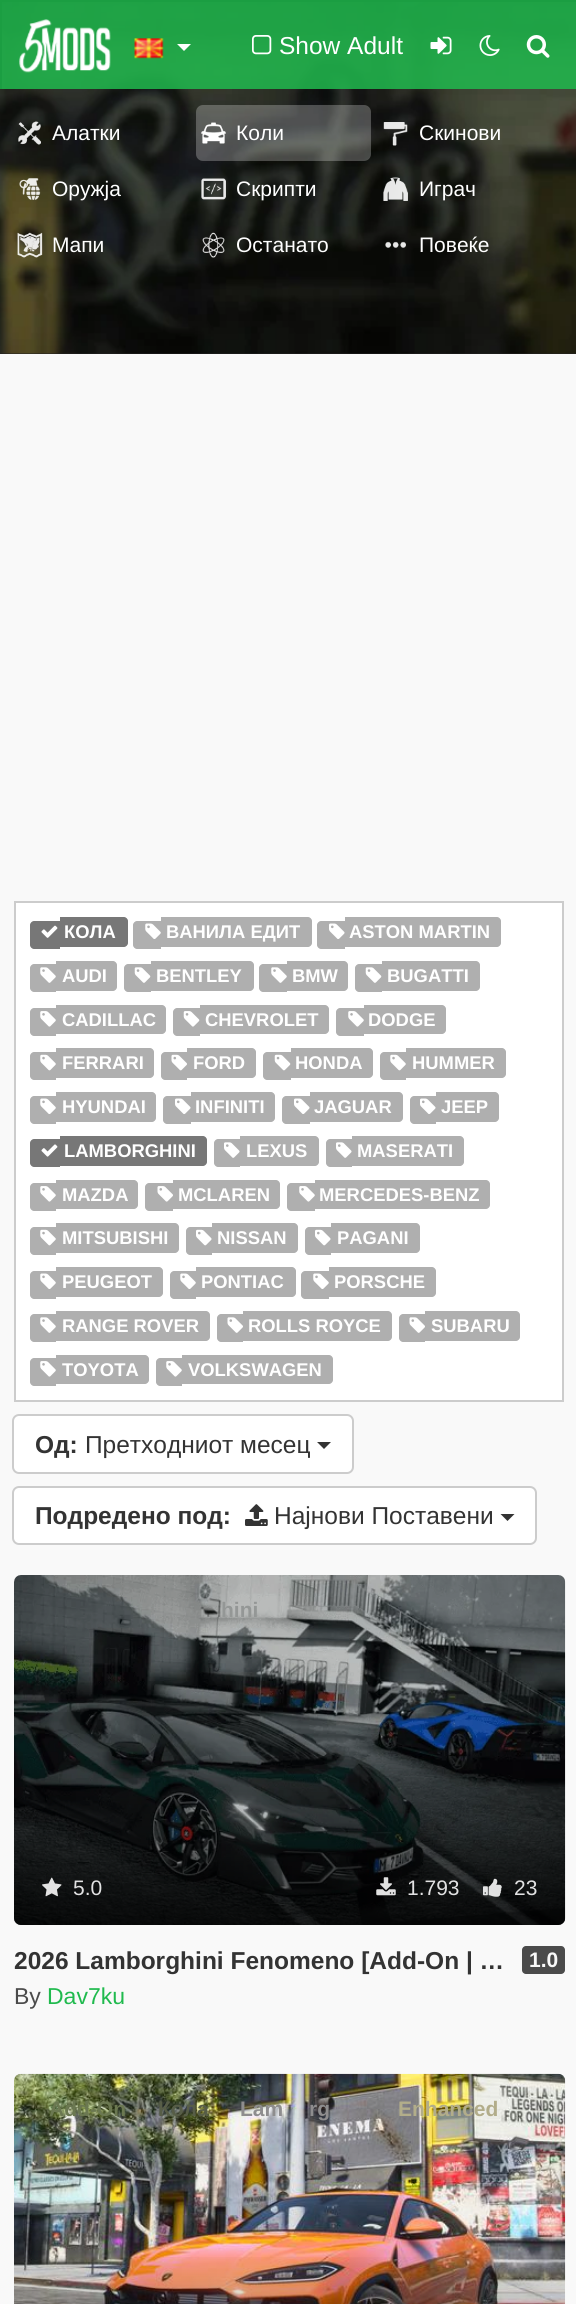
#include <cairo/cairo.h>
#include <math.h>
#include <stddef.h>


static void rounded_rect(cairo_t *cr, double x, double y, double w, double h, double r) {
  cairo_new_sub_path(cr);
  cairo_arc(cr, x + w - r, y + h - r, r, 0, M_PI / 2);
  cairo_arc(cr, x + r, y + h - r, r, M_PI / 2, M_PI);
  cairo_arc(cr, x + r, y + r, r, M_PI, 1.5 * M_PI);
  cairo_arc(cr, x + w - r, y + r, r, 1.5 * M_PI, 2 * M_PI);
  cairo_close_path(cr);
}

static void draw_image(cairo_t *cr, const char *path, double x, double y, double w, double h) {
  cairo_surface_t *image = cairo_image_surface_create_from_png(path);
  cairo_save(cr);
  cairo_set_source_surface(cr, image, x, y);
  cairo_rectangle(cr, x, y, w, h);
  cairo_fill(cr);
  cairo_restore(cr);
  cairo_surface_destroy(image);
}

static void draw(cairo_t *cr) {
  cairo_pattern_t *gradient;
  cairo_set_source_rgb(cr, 249 / 255.0, 249 / 255.0, 249 / 255.0);
  cairo_paint(cr);
  cairo_set_source_rgb(cr, 34 / 255.0, 34 / 255.0, 34 / 255.0);
  cairo_rectangle(cr, 0, 353, 576, 1);
  cairo_fill(cr);
  draw_image(cr, "images/7.png", 0, 2, 576, 352);
  cairo_set_source_rgba(cr, 32 / 255.0, 186 / 255.0, 78 / 255.0, 0.85);
  cairo_rectangle(cr, 2, 2, 574, 87);
  cairo_fill(cr);
  cairo_set_source_rgb(cr, 27 / 255.0, 158 / 255.0, 66 / 255.0);
  cairo_rectangle(cr, 0, 0, 576, 2);
  cairo_fill(cr);
  cairo_rectangle(cr, 0, 0, 2, 89);
  cairo_fill(cr);
  draw_image(cr, "images/1.png", 19, 19, 92, 54);
  draw_image(cr, "images/2.png", 134, 38, 30, 21);
  cairo_set_source_rgb(cr, 1, 1, 1);
  cairo_new_path(cr);
  cairo_move_to(cr, 177, 44);
  cairo_line_to(cr, 191, 44);
  cairo_line_to(cr, 184, 51);
  cairo_close_path(cr);
  cairo_fill(cr);
  draw_image(cr, "images/3.png", 252, 35, 20, 20);
  draw_image(cr, "images/4.png", 430, 36, 22, 19);
  draw_image(cr, "images/5.png", 479, 35, 21, 21);
  draw_image(cr, "images/6.png", 526, 35, 24, 23);
  draw_image(cr, "images/8.png", 18, 121, 23, 24);
  cairo_set_source_rgba(cr, 1, 1, 1, 0.25);
  rounded_rect(cr, 196, 105, 175, 56, 7);
  cairo_fill(cr);
  draw_image(cr, "images/9.png", 201, 122, 25, 22);
  draw_image(cr, "images/10.png", 383, 122, 25, 24);
  draw_image(cr, "images/11.png", 19, 178, 22, 22);
  draw_image(cr, "images/12.png", 201, 178, 25, 22);
  draw_image(cr, "images/13.png", 383, 177, 25, 24);
  draw_image(cr, "images/14.png", 17, 232, 26, 26);
  draw_image(cr, "images/15.png", 202, 232, 23, 26);
  draw_image(cr, "images/16.png", 385, 241, 21, 7);
  cairo_set_source_rgb(cr, 1, 1, 1);
  cairo_rectangle(cr, 15, 902, 548, 499);
  cairo_fill_preserve(cr);
  cairo_set_source_rgb(cr, 204 / 255.0, 204 / 255.0, 204 / 255.0);
  cairo_stroke(cr);
  cairo_set_source_rgb(cr, 119 / 255.0, 119 / 255.0, 119 / 255.0);
  cairo_new_path(cr);
  cairo_move_to(cr, 34, 921);
  cairo_line_to(cr, 60, 921);
  cairo_line_to(cr, 60, 949);
  cairo_line_to(cr, 34, 949);
  cairo_curve_to(cr, 32, 949, 30, 947, 30, 945);
  cairo_line_to(cr, 30, 925);
  cairo_curve_to(cr, 30, 923, 32, 921, 34, 921);
  cairo_close_path(cr);
  cairo_fill(cr);
  cairo_new_path(cr);
  cairo_move_to(cr, 60, 917);
  cairo_line_to(cr, 124, 917);
  cairo_curve_to(cr, 126, 917, 128, 919, 128, 921);
  cairo_line_to(cr, 128, 943);
  cairo_curve_to(cr, 128, 945, 126, 947, 124, 947);
  cairo_line_to(cr, 60, 947);
  cairo_close_path(cr);
  cairo_fill(cr);
  draw_image(cr, "images/17.png", 41, 925, 17, 13);
  cairo_set_source_rgb(cr, 175 / 255.0, 175 / 255.0, 175 / 255.0);
  cairo_new_path(cr);
  cairo_move_to(cr, 137, 921);
  cairo_line_to(cr, 161, 921);
  cairo_line_to(cr, 161, 949);
  cairo_line_to(cr, 137, 949);
  cairo_curve_to(cr, 135, 949, 133, 947, 133, 945);
  cairo_line_to(cr, 133, 925);
  cairo_curve_to(cr, 133, 923, 135, 921, 137, 921);
  cairo_close_path(cr);
  cairo_fill(cr);
  cairo_new_path(cr);
  cairo_move_to(cr, 161, 917);
  cairo_line_to(cr, 308, 917);
  cairo_curve_to(cr, 310, 917, 312, 919, 312, 921);
  cairo_line_to(cr, 312, 943);
  cairo_curve_to(cr, 312, 945, 310, 947, 308, 947);
  cairo_line_to(cr, 161, 947);
  cairo_close_path(cr);
  cairo_fill(cr);
  draw_image(cr, "images/18.png", 145, 923, 16, 16);
  cairo_new_path(cr);
  cairo_move_to(cr, 321, 921);
  cairo_line_to(cr, 345, 921);
  cairo_line_to(cr, 345, 949);
  cairo_line_to(cr, 321, 949);
  cairo_curve_to(cr, 319, 949, 317, 947, 317, 945);
  cairo_line_to(cr, 317, 925);
  cairo_curve_to(cr, 317, 923, 319, 921, 321, 921);
  cairo_close_path(cr);
  cairo_fill(cr);
  cairo_new_path(cr);
  cairo_move_to(cr, 345, 917);
  cairo_line_to(cr, 497, 917);
  cairo_curve_to(cr, 499, 917, 501, 919, 501, 921);
  cairo_line_to(cr, 501, 943);
  cairo_curve_to(cr, 501, 945, 499, 947, 497, 947);
  cairo_line_to(cr, 345, 947);
  cairo_close_path(cr);
  cairo_fill(cr);
  draw_image(cr, "images/19.png", 329, 923, 16, 16);
  cairo_new_path(cr);
  cairo_move_to(cr, 34, 964);
  cairo_line_to(cr, 56, 964);
  cairo_line_to(cr, 56, 992);
  cairo_line_to(cr, 34, 992);
  cairo_curve_to(cr, 32, 992, 30, 990, 30, 988);
  cairo_line_to(cr, 30, 968);
  cairo_curve_to(cr, 30, 966, 32, 964, 34, 964);
  cairo_close_path(cr);
  cairo_fill(cr);
  cairo_new_path(cr);
  cairo_move_to(cr, 56, 961);
  cairo_line_to(cr, 113, 961);
  cairo_curve_to(cr, 115, 961, 117, 963, 117, 965);
  cairo_line_to(cr, 117, 987);
  cairo_curve_to(cr, 117, 989, 115, 991, 113, 991);
  cairo_line_to(cr, 56, 991);
  cairo_close_path(cr);
  cairo_fill(cr);
  draw_image(cr, "images/20.png", 40, 967, 16, 16);
  cairo_new_path(cr);
  cairo_move_to(cr, 128, 964);
  cairo_line_to(cr, 151, 964);
  cairo_line_to(cr, 151, 992);
  cairo_line_to(cr, 128, 992);
  cairo_curve_to(cr, 126, 992, 124, 990, 124, 988);
  cairo_line_to(cr, 124, 968);
  cairo_curve_to(cr, 124, 966, 126, 964, 128, 964);
  cairo_close_path(cr);
  cairo_fill(cr);
  cairo_new_path(cr);
  cairo_move_to(cr, 151, 961);
  cairo_line_to(cr, 250, 961);
  cairo_curve_to(cr, 252, 961, 254, 963, 254, 965);
  cairo_line_to(cr, 254, 987);
  cairo_curve_to(cr, 254, 989, 252, 991, 250, 991);
  cairo_line_to(cr, 151, 991);
  cairo_close_path(cr);
  cairo_fill(cr);
  draw_image(cr, "images/21.png", 134, 967, 17, 16);
  cairo_new_path(cr);
  cairo_move_to(cr, 263, 964);
  cairo_line_to(cr, 287, 964);
  cairo_line_to(cr, 287, 992);
  cairo_line_to(cr, 263, 992);
  cairo_curve_to(cr, 261, 992, 259, 990, 259, 988);
  cairo_line_to(cr, 259, 968);
  cairo_curve_to(cr, 259, 966, 261, 964, 263, 964);
  cairo_close_path(cr);
  cairo_fill(cr);
  cairo_new_path(cr);
  cairo_move_to(cr, 287, 961);
  cairo_line_to(cr, 344, 961);
  cairo_curve_to(cr, 346, 961, 348, 963, 348, 965);
  cairo_line_to(cr, 348, 987);
  cairo_curve_to(cr, 348, 989, 346, 991, 344, 991);
  cairo_line_to(cr, 287, 991);
  cairo_close_path(cr);
  cairo_fill(cr);
  draw_image(cr, "images/20.png", 271, 967, 16, 16);
  cairo_new_path(cr);
  cairo_move_to(cr, 359, 964);
  cairo_line_to(cr, 382, 964);
  cairo_line_to(cr, 382, 992);
  cairo_line_to(cr, 359, 992);
  cairo_curve_to(cr, 357, 992, 355, 990, 355, 988);
  cairo_line_to(cr, 355, 968);
  cairo_curve_to(cr, 355, 966, 357, 964, 359, 964);
  cairo_close_path(cr);
  cairo_fill(cr);
  cairo_new_path(cr);
  cairo_move_to(cr, 382, 961);
  cairo_line_to(cr, 476, 961);
  cairo_curve_to(cr, 478, 961, 480, 963, 480, 965);
  cairo_line_to(cr, 480, 987);
  cairo_curve_to(cr, 480, 989, 478, 991, 476, 991);
  cairo_line_to(cr, 382, 991);
  cairo_close_path(cr);
  cairo_fill(cr);
  draw_image(cr, "images/21.png", 365, 967, 17, 16);
  cairo_new_path(cr);
  cairo_move_to(cr, 34, 1008);
  cairo_line_to(cr, 56, 1008);
  cairo_line_to(cr, 56, 1036);
  cairo_line_to(cr, 34, 1036);
  cairo_curve_to(cr, 32, 1036, 30, 1034, 30, 1032);
  cairo_line_to(cr, 30, 1012);
  cairo_curve_to(cr, 30, 1010, 32, 1008, 34, 1008);
  cairo_close_path(cr);
  cairo_fill(cr);
  cairo_new_path(cr);
  cairo_move_to(cr, 56, 1005);
  cairo_line_to(cr, 162, 1005);
  cairo_curve_to(cr, 164, 1005, 166, 1007, 166, 1009);
  cairo_line_to(cr, 166, 1030);
  cairo_curve_to(cr, 166, 1032, 164, 1034, 162, 1034);
  cairo_line_to(cr, 56, 1034);
  cairo_close_path(cr);
  cairo_fill(cr);
  draw_image(cr, "images/22.png", 40, 1011, 16, 16);
  cairo_new_path(cr);
  cairo_move_to(cr, 177, 1008);
  cairo_line_to(cr, 200, 1008);
  cairo_line_to(cr, 200, 1036);
  cairo_line_to(cr, 177, 1036);
  cairo_curve_to(cr, 175, 1036, 173, 1034, 173, 1032);
  cairo_line_to(cr, 173, 1012);
  cairo_curve_to(cr, 173, 1010, 175, 1008, 177, 1008);
  cairo_close_path(cr);
  cairo_fill(cr);
  cairo_new_path(cr);
  cairo_move_to(cr, 200, 1005);
  cairo_line_to(cr, 325, 1005);
  cairo_curve_to(cr, 327, 1005, 329, 1007, 329, 1009);
  cairo_line_to(cr, 329, 1030);
  cairo_curve_to(cr, 329, 1032, 327, 1034, 325, 1034);
  cairo_line_to(cr, 200, 1034);
  cairo_close_path(cr);
  cairo_fill(cr);
  draw_image(cr, "images/23.png", 183, 1011, 17, 16);
  cairo_new_path(cr);
  cairo_move_to(cr, 340, 1008);
  cairo_line_to(cr, 364, 1008);
  cairo_line_to(cr, 364, 1036);
  cairo_line_to(cr, 340, 1036);
  cairo_curve_to(cr, 338, 1036, 336, 1034, 336, 1032);
  cairo_line_to(cr, 336, 1012);
  cairo_curve_to(cr, 336, 1010, 338, 1008, 340, 1008);
  cairo_close_path(cr);
  cairo_fill(cr);
  cairo_new_path(cr);
  cairo_move_to(cr, 364, 1005);
  cairo_line_to(cr, 442, 1005);
  cairo_curve_to(cr, 444, 1005, 446, 1007, 446, 1009);
  cairo_line_to(cr, 446, 1030);
  cairo_curve_to(cr, 446, 1032, 444, 1034, 442, 1034);
  cairo_line_to(cr, 364, 1034);
  cairo_close_path(cr);
  cairo_fill(cr);
  draw_image(cr, "images/22.png", 348, 1011, 16, 16);
  cairo_new_path(cr);
  cairo_move_to(cr, 34, 1052);
  cairo_line_to(cr, 56, 1052);
  cairo_line_to(cr, 56, 1080);
  cairo_line_to(cr, 34, 1080);
  cairo_curve_to(cr, 32, 1080, 30, 1078, 30, 1076);
  cairo_line_to(cr, 30, 1056);
  cairo_curve_to(cr, 30, 1054, 32, 1052, 34, 1052);
  cairo_close_path(cr);
  cairo_fill(cr);
  cairo_new_path(cr);
  cairo_move_to(cr, 56, 1048);
  cairo_line_to(cr, 150, 1048);
  cairo_curve_to(cr, 152, 1048, 154, 1050, 154, 1052);
  cairo_line_to(cr, 154, 1074);
  cairo_curve_to(cr, 154, 1076, 152, 1078, 150, 1078);
  cairo_line_to(cr, 56, 1078);
  cairo_close_path(cr);
  cairo_fill(cr);
  draw_image(cr, "images/24.png", 40, 1054, 16, 17);
  cairo_new_path(cr);
  cairo_move_to(cr, 165, 1052);
  cairo_line_to(cr, 187, 1052);
  cairo_line_to(cr, 187, 1080);
  cairo_line_to(cr, 165, 1080);
  cairo_curve_to(cr, 163, 1080, 161, 1078, 161, 1076);
  cairo_line_to(cr, 161, 1056);
  cairo_curve_to(cr, 161, 1054, 163, 1052, 165, 1052);
  cairo_close_path(cr);
  cairo_fill(cr);
  cairo_new_path(cr);
  cairo_move_to(cr, 187, 1048);
  cairo_line_to(cr, 252, 1048);
  cairo_curve_to(cr, 254, 1048, 256, 1050, 256, 1052);
  cairo_line_to(cr, 256, 1074);
  cairo_curve_to(cr, 256, 1076, 254, 1078, 252, 1078);
  cairo_line_to(cr, 187, 1078);
  cairo_close_path(cr);
  cairo_fill(cr);
  draw_image(cr, "images/25.png", 171, 1054, 16, 17);
  cairo_new_path(cr);
  cairo_move_to(cr, 267, 1052);
  cairo_line_to(cr, 291, 1052);
  cairo_line_to(cr, 291, 1080);
  cairo_line_to(cr, 267, 1080);
  cairo_curve_to(cr, 265, 1080, 263, 1078, 263, 1076);
  cairo_line_to(cr, 263, 1056);
  cairo_curve_to(cr, 263, 1054, 265, 1052, 267, 1052);
  cairo_close_path(cr);
  cairo_fill(cr);
  cairo_new_path(cr);
  cairo_move_to(cr, 291, 1048);
  cairo_line_to(cr, 369, 1048);
  cairo_curve_to(cr, 371, 1048, 373, 1050, 373, 1052);
  cairo_line_to(cr, 373, 1074);
  cairo_curve_to(cr, 373, 1076, 371, 1078, 369, 1078);
  cairo_line_to(cr, 291, 1078);
  cairo_close_path(cr);
  cairo_fill(cr);
  draw_image(cr, "images/26.png", 274, 1054, 17, 17);
  cairo_new_path(cr);
  cairo_move_to(cr, 384, 1052);
  cairo_line_to(cr, 406, 1052);
  cairo_line_to(cr, 406, 1080);
  cairo_line_to(cr, 384, 1080);
  cairo_curve_to(cr, 382, 1080, 380, 1078, 380, 1076);
  cairo_line_to(cr, 380, 1056);
  cairo_curve_to(cr, 380, 1054, 382, 1052, 384, 1052);
  cairo_close_path(cr);
  cairo_fill(cr);
  cairo_new_path(cr);
  cairo_move_to(cr, 406, 1048);
  cairo_line_to(cr, 502, 1048);
  cairo_curve_to(cr, 504, 1048, 506, 1050, 506, 1052);
  cairo_line_to(cr, 506, 1074);
  cairo_curve_to(cr, 506, 1076, 504, 1078, 502, 1078);
  cairo_line_to(cr, 406, 1078);
  cairo_close_path(cr);
  cairo_fill(cr);
  draw_image(cr, "images/24.png", 390, 1054, 16, 17);
  cairo_new_path(cr);
  cairo_move_to(cr, 34, 1096);
  cairo_line_to(cr, 56, 1096);
  cairo_line_to(cr, 56, 1124);
  cairo_line_to(cr, 34, 1124);
  cairo_curve_to(cr, 32, 1124, 30, 1122, 30, 1120);
  cairo_line_to(cr, 30, 1100);
  cairo_curve_to(cr, 30, 1098, 32, 1096, 34, 1096);
  cairo_close_path(cr);
  cairo_fill(cr);
  cairo_new_path(cr);
  cairo_move_to(cr, 56, 1092);
  cairo_line_to(cr, 152, 1092);
  cairo_curve_to(cr, 154, 1092, 156, 1094, 156, 1096);
  cairo_line_to(cr, 156, 1118);
  cairo_curve_to(cr, 156, 1120, 154, 1122, 152, 1122);
  cairo_line_to(cr, 56, 1122);
  cairo_close_path(cr);
  cairo_fill(cr);
  draw_image(cr, "images/18.png", 40, 1098, 16, 16);
  cairo_new_path(cr);
  cairo_move_to(cr, 167, 1096);
  cairo_line_to(cr, 191, 1096);
  cairo_line_to(cr, 191, 1124);
  cairo_line_to(cr, 167, 1124);
  cairo_curve_to(cr, 165, 1124, 163, 1122, 163, 1120);
  cairo_line_to(cr, 163, 1100);
  cairo_curve_to(cr, 163, 1098, 165, 1096, 167, 1096);
  cairo_close_path(cr);
  cairo_fill(cr);
  cairo_new_path(cr);
  cairo_move_to(cr, 191, 1092);
  cairo_line_to(cr, 271, 1092);
  cairo_curve_to(cr, 273, 1092, 275, 1094, 275, 1096);
  cairo_line_to(cr, 275, 1118);
  cairo_curve_to(cr, 275, 1120, 273, 1122, 271, 1122);
  cairo_line_to(cr, 191, 1122);
  cairo_close_path(cr);
  cairo_fill(cr);
  draw_image(cr, "images/19.png", 175, 1098, 16, 16);
  cairo_new_path(cr);
  cairo_move_to(cr, 286, 1096);
  cairo_line_to(cr, 310, 1096);
  cairo_line_to(cr, 310, 1124);
  cairo_line_to(cr, 286, 1124);
  cairo_curve_to(cr, 284, 1124, 282, 1122, 282, 1120);
  cairo_line_to(cr, 282, 1100);
  cairo_curve_to(cr, 282, 1098, 284, 1096, 286, 1096);
  cairo_close_path(cr);
  cairo_fill(cr);
  cairo_new_path(cr);
  cairo_move_to(cr, 310, 1092);
  cairo_line_to(cr, 399, 1092);
  cairo_curve_to(cr, 401, 1092, 403, 1094, 403, 1096);
  cairo_line_to(cr, 403, 1118);
  cairo_curve_to(cr, 403, 1120, 401, 1122, 399, 1122);
  cairo_line_to(cr, 310, 1122);
  cairo_close_path(cr);
  cairo_fill(cr);
  draw_image(cr, "images/19.png", 294, 1098, 16, 16);
  cairo_new_path(cr);
  cairo_move_to(cr, 414, 1096);
  cairo_line_to(cr, 436, 1096);
  cairo_line_to(cr, 436, 1124);
  cairo_line_to(cr, 414, 1124);
  cairo_curve_to(cr, 412, 1124, 410, 1122, 410, 1120);
  cairo_line_to(cr, 410, 1100);
  cairo_curve_to(cr, 410, 1098, 412, 1096, 414, 1096);
  cairo_close_path(cr);
  cairo_fill(cr);
  cairo_new_path(cr);
  cairo_move_to(cr, 436, 1092);
  cairo_line_to(cr, 495, 1092);
  cairo_curve_to(cr, 497, 1092, 499, 1094, 499, 1096);
  cairo_line_to(cr, 499, 1118);
  cairo_curve_to(cr, 499, 1120, 497, 1122, 495, 1122);
  cairo_line_to(cr, 436, 1122);
  cairo_close_path(cr);
  cairo_fill(cr);
  draw_image(cr, "images/19.png", 420, 1098, 16, 16);
  cairo_set_source_rgb(cr, 119 / 255.0, 119 / 255.0, 119 / 255.0);
  cairo_new_path(cr);
  cairo_move_to(cr, 34, 1139);
  cairo_line_to(cr, 60, 1139);
  cairo_line_to(cr, 60, 1167);
  cairo_line_to(cr, 34, 1167);
  cairo_curve_to(cr, 32, 1167, 30, 1165, 30, 1163);
  cairo_line_to(cr, 30, 1143);
  cairo_curve_to(cr, 30, 1141, 32, 1139, 34, 1139);
  cairo_close_path(cr);
  cairo_fill(cr);
  cairo_new_path(cr);
  cairo_move_to(cr, 60, 1136);
  cairo_line_to(cr, 203, 1136);
  cairo_curve_to(cr, 205, 1136, 207, 1138, 207, 1140);
  cairo_line_to(cr, 207, 1162);
  cairo_curve_to(cr, 207, 1164, 205, 1166, 203, 1166);
  cairo_line_to(cr, 60, 1166);
  cairo_close_path(cr);
  cairo_fill(cr);
  draw_image(cr, "images/27.png", 41, 1144, 17, 13);
  cairo_set_source_rgb(cr, 175 / 255.0, 175 / 255.0, 175 / 255.0);
  cairo_new_path(cr);
  cairo_move_to(cr, 218, 1139);
  cairo_line_to(cr, 240, 1139);
  cairo_line_to(cr, 240, 1167);
  cairo_line_to(cr, 218, 1167);
  cairo_curve_to(cr, 216, 1167, 214, 1165, 214, 1163);
  cairo_line_to(cr, 214, 1143);
  cairo_curve_to(cr, 214, 1141, 216, 1139, 218, 1139);
  cairo_close_path(cr);
  cairo_fill(cr);
  cairo_new_path(cr);
  cairo_move_to(cr, 240, 1136);
  cairo_line_to(cr, 315, 1136);
  cairo_curve_to(cr, 317, 1136, 319, 1138, 319, 1140);
  cairo_line_to(cr, 319, 1162);
  cairo_curve_to(cr, 319, 1164, 317, 1166, 315, 1166);
  cairo_line_to(cr, 240, 1166);
  cairo_close_path(cr);
  cairo_fill(cr);
  draw_image(cr, "images/28.png", 224, 1142, 16, 16);
  cairo_new_path(cr);
  cairo_move_to(cr, 330, 1139);
  cairo_line_to(cr, 352, 1139);
  cairo_line_to(cr, 352, 1167);
  cairo_line_to(cr, 330, 1167);
  cairo_curve_to(cr, 328, 1167, 326, 1165, 326, 1163);
  cairo_line_to(cr, 326, 1143);
  cairo_curve_to(cr, 326, 1141, 328, 1139, 330, 1139);
  cairo_close_path(cr);
  cairo_fill(cr);
  cairo_new_path(cr);
  cairo_move_to(cr, 352, 1136);
  cairo_line_to(cr, 460, 1136);
  cairo_curve_to(cr, 462, 1136, 464, 1138, 464, 1140);
  cairo_line_to(cr, 464, 1162);
  cairo_curve_to(cr, 464, 1164, 462, 1166, 460, 1166);
  cairo_line_to(cr, 352, 1166);
  cairo_close_path(cr);
  cairo_fill(cr);
  draw_image(cr, "images/28.png", 336, 1142, 16, 16);
  cairo_new_path(cr);
  cairo_move_to(cr, 34, 1183);
  cairo_line_to(cr, 56, 1183);
  cairo_line_to(cr, 56, 1211);
  cairo_line_to(cr, 34, 1211);
  cairo_curve_to(cr, 32, 1211, 30, 1209, 30, 1207);
  cairo_line_to(cr, 30, 1187);
  cairo_curve_to(cr, 30, 1185, 32, 1183, 34, 1183);
  cairo_close_path(cr);
  cairo_fill(cr);
  cairo_new_path(cr);
  cairo_move_to(cr, 56, 1180);
  cairo_line_to(cr, 134, 1180);
  cairo_curve_to(cr, 136, 1180, 138, 1182, 138, 1184);
  cairo_line_to(cr, 138, 1205);
  cairo_curve_to(cr, 138, 1207, 136, 1209, 134, 1209);
  cairo_line_to(cr, 56, 1209);
  cairo_close_path(cr);
  cairo_fill(cr);
  draw_image(cr, "images/22.png", 40, 1186, 16, 16);
  cairo_new_path(cr);
  cairo_move_to(cr, 149, 1183);
  cairo_line_to(cr, 173, 1183);
  cairo_line_to(cr, 173, 1211);
  cairo_line_to(cr, 149, 1211);
  cairo_curve_to(cr, 147, 1211, 145, 1209, 145, 1207);
  cairo_line_to(cr, 145, 1187);
  cairo_curve_to(cr, 145, 1185, 147, 1183, 149, 1183);
  cairo_close_path(cr);
  cairo_fill(cr);
  cairo_new_path(cr);
  cairo_move_to(cr, 173, 1180);
  cairo_line_to(cr, 276, 1180);
  cairo_curve_to(cr, 278, 1180, 280, 1182, 280, 1184);
  cairo_line_to(cr, 280, 1205);
  cairo_curve_to(cr, 280, 1207, 278, 1209, 276, 1209);
  cairo_line_to(cr, 173, 1209);
  cairo_close_path(cr);
  cairo_fill(cr);
  draw_image(cr, "images/29.png", 157, 1186, 16, 16);
  cairo_new_path(cr);
  cairo_move_to(cr, 291, 1183);
  cairo_line_to(cr, 315, 1183);
  cairo_line_to(cr, 315, 1211);
  cairo_line_to(cr, 291, 1211);
  cairo_curve_to(cr, 289, 1211, 287, 1209, 287, 1207);
  cairo_line_to(cr, 287, 1187);
  cairo_curve_to(cr, 287, 1185, 289, 1183, 291, 1183);
  cairo_close_path(cr);
  cairo_fill(cr);
  cairo_new_path(cr);
  cairo_move_to(cr, 315, 1180);
  cairo_line_to(cr, 486, 1180);
  cairo_curve_to(cr, 488, 1180, 490, 1182, 490, 1184);
  cairo_line_to(cr, 490, 1205);
  cairo_curve_to(cr, 490, 1207, 488, 1209, 486, 1209);
  cairo_line_to(cr, 315, 1209);
  cairo_close_path(cr);
  cairo_fill(cr);
  draw_image(cr, "images/22.png", 299, 1186, 16, 16);
  cairo_new_path(cr);
  cairo_move_to(cr, 34, 1227);
  cairo_line_to(cr, 56, 1227);
  cairo_line_to(cr, 56, 1255);
  cairo_line_to(cr, 34, 1255);
  cairo_curve_to(cr, 32, 1255, 30, 1253, 30, 1251);
  cairo_line_to(cr, 30, 1231);
  cairo_curve_to(cr, 30, 1229, 32, 1227, 34, 1227);
  cairo_close_path(cr);
  cairo_fill(cr);
  cairo_new_path(cr);
  cairo_move_to(cr, 56, 1223);
  cairo_line_to(cr, 175, 1223);
  cairo_curve_to(cr, 177, 1223, 179, 1225, 179, 1227);
  cairo_line_to(cr, 179, 1249);
  cairo_curve_to(cr, 179, 1251, 177, 1253, 175, 1253);
  cairo_line_to(cr, 56, 1253);
  cairo_close_path(cr);
  cairo_fill(cr);
  draw_image(cr, "images/24.png", 40, 1229, 16, 17);
  cairo_new_path(cr);
  cairo_move_to(cr, 190, 1227);
  cairo_line_to(cr, 212, 1227);
  cairo_line_to(cr, 212, 1255);
  cairo_line_to(cr, 190, 1255);
  cairo_curve_to(cr, 188, 1255, 186, 1253, 186, 1251);
  cairo_line_to(cr, 186, 1231);
  cairo_curve_to(cr, 186, 1229, 188, 1227, 190, 1227);
  cairo_close_path(cr);
  cairo_fill(cr);
  cairo_new_path(cr);
  cairo_move_to(cr, 212, 1223);
  cairo_line_to(cr, 294, 1223);
  cairo_curve_to(cr, 296, 1223, 298, 1225, 298, 1227);
  cairo_line_to(cr, 298, 1249);
  cairo_curve_to(cr, 298, 1251, 296, 1253, 294, 1253);
  cairo_line_to(cr, 212, 1253);
  cairo_close_path(cr);
  cairo_fill(cr);
  draw_image(cr, "images/30.png", 196, 1229, 16, 17);
  cairo_new_path(cr);
  cairo_move_to(cr, 309, 1227);
  cairo_line_to(cr, 331, 1227);
  cairo_line_to(cr, 331, 1255);
  cairo_line_to(cr, 309, 1255);
  cairo_curve_to(cr, 307, 1255, 305, 1253, 305, 1251);
  cairo_line_to(cr, 305, 1231);
  cairo_curve_to(cr, 305, 1229, 307, 1227, 309, 1227);
  cairo_close_path(cr);
  cairo_fill(cr);
  cairo_new_path(cr);
  cairo_move_to(cr, 331, 1223);
  cairo_line_to(cr, 416, 1223);
  cairo_curve_to(cr, 418, 1223, 420, 1225, 420, 1227);
  cairo_line_to(cr, 420, 1249);
  cairo_curve_to(cr, 420, 1251, 418, 1253, 416, 1253);
  cairo_line_to(cr, 331, 1253);
  cairo_close_path(cr);
  cairo_fill(cr);
  draw_image(cr, "images/30.png", 315, 1229, 16, 17);
  cairo_new_path(cr);
  cairo_move_to(cr, 34, 1271);
  cairo_line_to(cr, 56, 1271);
  cairo_line_to(cr, 56, 1299);
  cairo_line_to(cr, 34, 1299);
  cairo_curve_to(cr, 32, 1299, 30, 1297, 30, 1295);
  cairo_line_to(cr, 30, 1275);
  cairo_curve_to(cr, 30, 1273, 32, 1271, 34, 1271);
  cairo_close_path(cr);
  cairo_fill(cr);
  cairo_new_path(cr);
  cairo_move_to(cr, 56, 1267);
  cairo_line_to(cr, 159, 1267);
  cairo_curve_to(cr, 161, 1267, 163, 1269, 163, 1271);
  cairo_line_to(cr, 163, 1293);
  cairo_curve_to(cr, 163, 1295, 161, 1297, 159, 1297);
  cairo_line_to(cr, 56, 1297);
  cairo_close_path(cr);
  cairo_fill(cr);
  draw_image(cr, "images/18.png", 40, 1273, 16, 16);
  cairo_new_path(cr);
  cairo_move_to(cr, 174, 1271);
  cairo_line_to(cr, 196, 1271);
  cairo_line_to(cr, 196, 1299);
  cairo_line_to(cr, 174, 1299);
  cairo_curve_to(cr, 172, 1299, 170, 1297, 170, 1295);
  cairo_line_to(cr, 170, 1275);
  cairo_curve_to(cr, 170, 1273, 172, 1271, 174, 1271);
  cairo_close_path(cr);
  cairo_fill(cr);
  cairo_new_path(cr);
  cairo_move_to(cr, 196, 1267);
  cairo_line_to(cr, 292, 1267);
  cairo_curve_to(cr, 294, 1267, 296, 1269, 296, 1271);
  cairo_line_to(cr, 296, 1293);
  cairo_curve_to(cr, 296, 1295, 294, 1297, 292, 1297);
  cairo_line_to(cr, 196, 1297);
  cairo_close_path(cr);
  cairo_fill(cr);
  draw_image(cr, "images/18.png", 180, 1273, 16, 16);
  cairo_new_path(cr);
  cairo_move_to(cr, 305, 1271);
  cairo_line_to(cr, 329, 1271);
  cairo_line_to(cr, 329, 1299);
  cairo_line_to(cr, 305, 1299);
  cairo_curve_to(cr, 303, 1299, 301, 1297, 301, 1295);
  cairo_line_to(cr, 301, 1275);
  cairo_curve_to(cr, 301, 1273, 303, 1271, 305, 1271);
  cairo_close_path(cr);
  cairo_fill(cr);
  cairo_new_path(cr);
  cairo_move_to(cr, 329, 1267);
  cairo_line_to(cr, 432, 1267);
  cairo_curve_to(cr, 434, 1267, 436, 1269, 436, 1271);
  cairo_line_to(cr, 436, 1293);
  cairo_curve_to(cr, 436, 1295, 434, 1297, 432, 1297);
  cairo_line_to(cr, 329, 1297);
  cairo_close_path(cr);
  cairo_fill(cr);
  draw_image(cr, "images/18.png", 313, 1273, 16, 16);
  cairo_new_path(cr);
  cairo_move_to(cr, 34, 1314);
  cairo_line_to(cr, 56, 1314);
  cairo_line_to(cr, 56, 1342);
  cairo_line_to(cr, 34, 1342);
  cairo_curve_to(cr, 32, 1342, 30, 1340, 30, 1338);
  cairo_line_to(cr, 30, 1318);
  cairo_curve_to(cr, 30, 1316, 32, 1314, 34, 1314);
  cairo_close_path(cr);
  cairo_fill(cr);
  cairo_new_path(cr);
  cairo_move_to(cr, 56, 1311);
  cairo_line_to(cr, 206, 1311);
  cairo_curve_to(cr, 208, 1311, 210, 1313, 210, 1315);
  cairo_line_to(cr, 210, 1337);
  cairo_curve_to(cr, 210, 1339, 208, 1341, 206, 1341);
  cairo_line_to(cr, 56, 1341);
  cairo_close_path(cr);
  cairo_fill(cr);
  draw_image(cr, "images/20.png", 40, 1317, 16, 16);
  cairo_new_path(cr);
  cairo_move_to(cr, 221, 1314);
  cairo_line_to(cr, 243, 1314);
  cairo_line_to(cr, 243, 1342);
  cairo_line_to(cr, 221, 1342);
  cairo_curve_to(cr, 219, 1342, 217, 1340, 217, 1338);
  cairo_line_to(cr, 217, 1318);
  cairo_curve_to(cr, 217, 1316, 219, 1314, 221, 1314);
  cairo_close_path(cr);
  cairo_fill(cr);
  cairo_new_path(cr);
  cairo_move_to(cr, 243, 1311);
  cairo_line_to(cr, 388, 1311);
  cairo_curve_to(cr, 390, 1311, 392, 1313, 392, 1315);
  cairo_line_to(cr, 392, 1337);
  cairo_curve_to(cr, 392, 1339, 390, 1341, 388, 1341);
  cairo_line_to(cr, 243, 1341);
  cairo_close_path(cr);
  cairo_fill(cr);
  draw_image(cr, "images/31.png", 227, 1317, 16, 16);
  cairo_new_path(cr);
  cairo_move_to(cr, 403, 1314);
  cairo_line_to(cr, 425, 1314);
  cairo_line_to(cr, 425, 1342);
  cairo_line_to(cr, 403, 1342);
  cairo_curve_to(cr, 401, 1342, 399, 1340, 399, 1338);
  cairo_line_to(cr, 399, 1318);
  cairo_curve_to(cr, 399, 1316, 401, 1314, 403, 1314);
  cairo_close_path(cr);
  cairo_fill(cr);
  cairo_new_path(cr);
  cairo_move_to(cr, 425, 1311);
  cairo_line_to(cr, 516, 1311);
  cairo_curve_to(cr, 518, 1311, 520, 1313, 520, 1315);
  cairo_line_to(cr, 520, 1337);
  cairo_curve_to(cr, 520, 1339, 518, 1341, 516, 1341);
  cairo_line_to(cr, 425, 1341);
  cairo_close_path(cr);
  cairo_fill(cr);
  draw_image(cr, "images/31.png", 409, 1317, 16, 16);
  cairo_new_path(cr);
  cairo_move_to(cr, 34, 1358);
  cairo_line_to(cr, 56, 1358);
  cairo_line_to(cr, 56, 1386);
  cairo_line_to(cr, 34, 1386);
  cairo_curve_to(cr, 32, 1386, 30, 1384, 30, 1382);
  cairo_line_to(cr, 30, 1362);
  cairo_curve_to(cr, 30, 1360, 32, 1358, 34, 1358);
  cairo_close_path(cr);
  cairo_fill(cr);
  cairo_new_path(cr);
  cairo_move_to(cr, 56, 1355);
  cairo_line_to(cr, 145, 1355);
  cairo_curve_to(cr, 147, 1355, 149, 1357, 149, 1359);
  cairo_line_to(cr, 149, 1380);
  cairo_curve_to(cr, 149, 1382, 147, 1384, 145, 1384);
  cairo_line_to(cr, 56, 1384);
  cairo_close_path(cr);
  cairo_fill(cr);
  draw_image(cr, "images/22.png", 40, 1361, 16, 16);
  cairo_new_path(cr);
  cairo_move_to(cr, 160, 1358);
  cairo_line_to(cr, 182, 1358);
  cairo_line_to(cr, 182, 1386);
  cairo_line_to(cr, 160, 1386);
  cairo_curve_to(cr, 158, 1386, 156, 1384, 156, 1382);
  cairo_line_to(cr, 156, 1362);
  cairo_curve_to(cr, 156, 1360, 158, 1358, 160, 1358);
  cairo_close_path(cr);
  cairo_fill(cr);
  cairo_new_path(cr);
  cairo_move_to(cr, 182, 1355);
  cairo_line_to(cr, 329, 1355);
  cairo_curve_to(cr, 331, 1355, 333, 1357, 333, 1359);
  cairo_line_to(cr, 333, 1380);
  cairo_curve_to(cr, 333, 1382, 331, 1384, 329, 1384);
  cairo_line_to(cr, 182, 1384);
  cairo_close_path(cr);
  cairo_fill(cr);
  draw_image(cr, "images/22.png", 166, 1361, 16, 16);
  cairo_set_source_rgb(cr, 1, 1, 1);
  rounded_rect(cr, 13, 1415, 340, 58, 6);
  cairo_fill_preserve(cr);
  cairo_set_source_rgb(cr, 204 / 255.0, 204 / 255.0, 204 / 255.0);
  cairo_stroke(cr);
  cairo_set_source_rgb(cr, 51 / 255.0, 51 / 255.0, 51 / 255.0);
  cairo_new_path(cr);
  cairo_move_to(cr, 317, 1442);
  cairo_line_to(cr, 331, 1442);
  cairo_line_to(cr, 324, 1449);
  cairo_close_path(cr);
  cairo_fill(cr);
  cairo_set_source_rgb(cr, 1, 1, 1);
  rounded_rect(cr, 13, 1487, 523, 57, 6);
  cairo_fill_preserve(cr);
  cairo_set_source_rgb(cr, 204 / 255.0, 204 / 255.0, 204 / 255.0);
  cairo_stroke(cr);
  draw_image(cr, "images/32.png", 245, 1504, 23, 22);
  cairo_set_source_rgb(cr, 51 / 255.0, 51 / 255.0, 51 / 255.0);
  cairo_new_path(cr);
  cairo_move_to(cr, 500.5, 1514);
  cairo_line_to(cr, 514.5, 1514);
  cairo_line_to(cr, 507.5, 1521);
  cairo_close_path(cr);
  cairo_fill(cr);
  draw_image(cr, "images/33.png", 14, 1575, 552, 350);
  gradient = cairo_pattern_create_linear(290, 1575, 290, 1925);
  cairo_pattern_add_color_stop_rgba(gradient, 0.5, 0, 0, 0, 0);
  cairo_pattern_add_color_stop_rgba(gradient, 0.75, 0, 0, 0, 0.25);
  cairo_pattern_add_color_stop_rgba(gradient, 1, 0, 0, 0, 0.75);
  cairo_set_source(cr, gradient);
  cairo_pattern_destroy(gradient);
  rounded_rect(cr, 14, 1575, 551, 350, 7);
  cairo_fill(cr);
  draw_image(cr, "images/34.png", 42, 1877, 20, 20);
  draw_image(cr, "images/35.png", 376, 1877, 20, 19);
  draw_image(cr, "images/36.png", 483, 1878, 19, 19);
  cairo_set_source_rgb(cr, 75 / 255.0, 75 / 255.0, 75 / 255.0);
  rounded_rect(cr, 522, 1946, 43, 28, 4);
  cairo_fill(cr);
  draw_image(cr, "images/37.png", 14, 2073, 552, 231);
  gradient = cairo_pattern_create_linear(290, 2074, 290, 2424);
  cairo_pattern_add_color_stop_rgba(gradient, 0.5, 0, 0, 0, 0);
  cairo_pattern_add_color_stop_rgba(gradient, 0.75, 0, 0, 0, 0.25);
  cairo_pattern_add_color_stop_rgba(gradient, 1, 0, 0, 0, 0.75);
  cairo_set_source(cr, gradient);
  cairo_pattern_destroy(gradient);
  cairo_rectangle(cr, 14, 2257, 551, 47);
  cairo_fill(cr);
  cairo_select_font_face(cr, "Liberation Sans", CAIRO_FONT_SLANT_NORMAL, CAIRO_FONT_WEIGHT_NORMAL);
  cairo_set_font_size(cr, 24.5);
  cairo_set_source_rgb(cr, 1, 1, 1);
  cairo_move_to(cr, 279, 54);
  cairo_show_text(cr, "Show Adult");
  cairo_set_font_size(cr, 21);
  cairo_move_to(cr, 52, 140);
  cairo_show_text(cr, "Алатки");
  cairo_move_to(cr, 236, 140);
  cairo_show_text(cr, "Коли");
  cairo_move_to(cr, 419, 140);
  cairo_show_text(cr, "Скинови");
  cairo_move_to(cr, 52, 196);
  cairo_show_text(cr, "Оружја");
  cairo_move_to(cr, 236, 196);
  cairo_show_text(cr, "Скрипти");
  cairo_move_to(cr, 419, 196);
  cairo_show_text(cr, "Играч");
  cairo_move_to(cr, 52, 252);
  cairo_show_text(cr, "Мапи");
  cairo_move_to(cr, 236, 252);
  cairo_show_text(cr, "Останато");
  cairo_move_to(cr, 419, 252);
  cairo_show_text(cr, "Повеќе");
  cairo_select_font_face(cr, "Liberation Sans", CAIRO_FONT_SLANT_NORMAL, CAIRO_FONT_WEIGHT_BOLD);
  cairo_set_font_size(cr, 18.4);
  cairo_move_to(cr, 64, 938);
  cairo_show_text(cr, "КОЛА");
  cairo_move_to(cr, 166, 938);
  cairo_show_text(cr, "ВАНИЛА ЕДИТ");
  cairo_move_to(cr, 349, 938);
  cairo_show_text(cr, "ASTON MARTIN");
  cairo_move_to(cr, 62, 982);
  cairo_show_text(cr, "AUDI");
  cairo_move_to(cr, 156, 982);
  cairo_show_text(cr, "BENTLEY");
  cairo_move_to(cr, 292, 982);
  cairo_show_text(cr, "BMW");
  cairo_move_to(cr, 387, 982);
  cairo_show_text(cr, "BUGATTI");
  cairo_move_to(cr, 62, 1026);
  cairo_show_text(cr, "CADILLAC");
  cairo_move_to(cr, 205, 1026);
  cairo_show_text(cr, "CHEVROLET");
  cairo_move_to(cr, 368, 1026);
  cairo_show_text(cr, "DODGE");
  cairo_move_to(cr, 62, 1069);
  cairo_show_text(cr, "FERRARI");
  cairo_move_to(cr, 193, 1069);
  cairo_show_text(cr, "FORD");
  cairo_move_to(cr, 295, 1069);
  cairo_show_text(cr, "HONDA");
  cairo_move_to(cr, 412, 1069);
  cairo_show_text(cr, "HUMMER");
  cairo_move_to(cr, 62, 1113);
  cairo_show_text(cr, "HYUNDAI");
  cairo_move_to(cr, 195, 1113);
  cairo_show_text(cr, "INFINITI");
  cairo_move_to(cr, 314, 1113);
  cairo_show_text(cr, "JAGUAR");
  cairo_move_to(cr, 441, 1113);
  cairo_show_text(cr, "JEEP");
  cairo_move_to(cr, 64, 1157);
  cairo_show_text(cr, "LAMBORGHINI");
  cairo_move_to(cr, 246, 1157);
  cairo_show_text(cr, "LEXUS");
  cairo_move_to(cr, 357, 1157);
  cairo_show_text(cr, "MASERATI");
  cairo_move_to(cr, 62, 1201);
  cairo_show_text(cr, "MAZDA");
  cairo_move_to(cr, 178, 1201);
  cairo_show_text(cr, "MCLAREN");
  cairo_move_to(cr, 319, 1201);
  cairo_show_text(cr, "MERCEDES-BENZ");
  cairo_move_to(cr, 62, 1244);
  cairo_show_text(cr, "MITSUBISHI");
  cairo_move_to(cr, 217, 1244);
  cairo_show_text(cr, "NISSAN");
  cairo_move_to(cr, 337, 1244);
  cairo_show_text(cr, "PAGANI");
  cairo_move_to(cr, 62, 1288);
  cairo_show_text(cr, "PEUGEOT");
  cairo_move_to(cr, 201, 1288);
  cairo_show_text(cr, "PONTIAC");
  cairo_move_to(cr, 334, 1288);
  cairo_show_text(cr, "PORSCHE");
  cairo_move_to(cr, 62, 1332);
  cairo_show_text(cr, "RANGE ROVER");
  cairo_move_to(cr, 248, 1332);
  cairo_show_text(cr, "ROLLS ROYCE");
  cairo_move_to(cr, 431, 1332);
  cairo_show_text(cr, "SUBARU");
  cairo_move_to(cr, 62, 1376);
  cairo_show_text(cr, "TOYOTA");
  cairo_move_to(cr, 188, 1376);
  cairo_show_text(cr, "VOLKSWAGEN");
  cairo_set_font_size(cr, 24.5);
  cairo_set_source_rgb(cr, 51 / 255.0, 51 / 255.0, 51 / 255.0);
  cairo_move_to(cr, 35, 1453);
  cairo_show_text(cr, "Од:");
  cairo_select_font_face(cr, "Liberation Sans", CAIRO_FONT_SLANT_NORMAL, CAIRO_FONT_WEIGHT_NORMAL);
  cairo_move_to(cr, 85, 1453);
  cairo_show_text(cr, "Претходниот месец");
  cairo_select_font_face(cr, "Liberation Sans", CAIRO_FONT_SLANT_NORMAL, CAIRO_FONT_WEIGHT_BOLD);
  cairo_move_to(cr, 35, 1524);
  cairo_show_text(cr, "Подредено под:");
  cairo_select_font_face(cr, "Liberation Sans", CAIRO_FONT_SLANT_NORMAL, CAIRO_FONT_WEIGHT_NORMAL);
  cairo_move_to(cr, 274, 1524);
  cairo_show_text(cr, "Најнови Поставени");
  cairo_select_font_face(cr, "Liberation Sans", CAIRO_FONT_SLANT_NORMAL, CAIRO_FONT_WEIGHT_BOLD);
  cairo_set_font_size(cr, 21);
  cairo_set_source_rgb(cr, 148 / 255.0, 151 / 255.0, 150 / 255.0);
  cairo_move_to(cr, 221, 1617);
  cairo_show_text(cr, "hini");
  cairo_select_font_face(cr, "Liberation Sans", CAIRO_FONT_SLANT_NORMAL, CAIRO_FONT_WEIGHT_NORMAL);
  cairo_set_source_rgb(cr, 226 / 255.0, 226 / 255.0, 227 / 255.0);
  cairo_move_to(cr, 73, 1895);
  cairo_show_text(cr, "5.0");
  cairo_move_to(cr, 407, 1895);
  cairo_show_text(cr, "1.793");
  cairo_move_to(cr, 514, 1895);
  cairo_show_text(cr, "23");
  cairo_select_font_face(cr, "Liberation Sans", CAIRO_FONT_SLANT_NORMAL, CAIRO_FONT_WEIGHT_BOLD);
  cairo_set_font_size(cr, 24.5);
  cairo_set_source_rgb(cr, 51 / 255.0, 51 / 255.0, 51 / 255.0);
  cairo_move_to(cr, 14, 1969);
  cairo_show_text(cr, "2026 Lamborghini Fenomeno [Add-On | …");
  cairo_set_font_size(cr, 21);
  cairo_set_source_rgb(cr, 249 / 255.0, 249 / 255.0, 249 / 255.0);
  cairo_move_to(cr, 529, 1967);
  cairo_show_text(cr, "1.0");
  cairo_select_font_face(cr, "Liberation Sans", CAIRO_FONT_SLANT_NORMAL, CAIRO_FONT_WEIGHT_NORMAL);
  cairo_set_font_size(cr, 23);
  cairo_set_source_rgb(cr, 75 / 255.0, 75 / 255.0, 75 / 255.0);
  cairo_move_to(cr, 14, 2004);
  cairo_show_text(cr, "By");
  cairo_set_source_rgb(cr, 32 / 255.0, 186 / 255.0, 78 / 255.0);
  cairo_move_to(cr, 47, 2004);
  cairo_show_text(cr, "Dav7ku");
  cairo_select_font_face(cr, "Liberation Sans", CAIRO_FONT_SLANT_NORMAL, CAIRO_FONT_WEIGHT_BOLD);
  cairo_set_font_size(cr, 21);
  cairo_set_source_rgb(cr, 107 / 255.0, 120 / 255.0, 81 / 255.0);
  cairo_move_to(cr, 49, 2116);
  cairo_show_text(cr, "Add-On");
  cairo_set_source_rgb(cr, 87 / 255.0, 93 / 255.0, 71 / 255.0);
  cairo_move_to(cr, 158, 2116);
  cairo_show_text(cr, "Кола");
  cairo_set_source_rgb(cr, 142 / 255.0, 141 / 255.0, 142 / 255.0);
  cairo_move_to(cr, 240, 2116);
  cairo_show_text(cr, "Lam");
  cairo_move_to(cr, 309, 2116);
  cairo_show_text(cr, "rg");
  cairo_set_source_rgb(cr, 178 / 255.0, 173 / 255.0, 138 / 255.0);
  cairo_move_to(cr, 398, 2116);
  cairo_show_text(cr, "Enhanced");
}

int main(void) {
  cairo_surface_t *surface = cairo_image_surface_create(CAIRO_FORMAT_RGB24, 576, 2304);
  cairo_t *cr = cairo_create(surface);
  cairo_font_options_t *options = cairo_font_options_create();
  cairo_font_options_set_hint_metrics(options, CAIRO_HINT_METRICS_OFF);
  cairo_font_options_set_hint_style(options, CAIRO_HINT_STYLE_NONE);
  cairo_set_font_options(cr, options);
  cairo_set_miter_limit(cr, 4);
  draw(cr);
  cairo_surface_write_to_png(surface, "out.png");
  cairo_font_options_destroy(options);
  cairo_destroy(cr);
  cairo_surface_destroy(surface);
  return 0;
}
